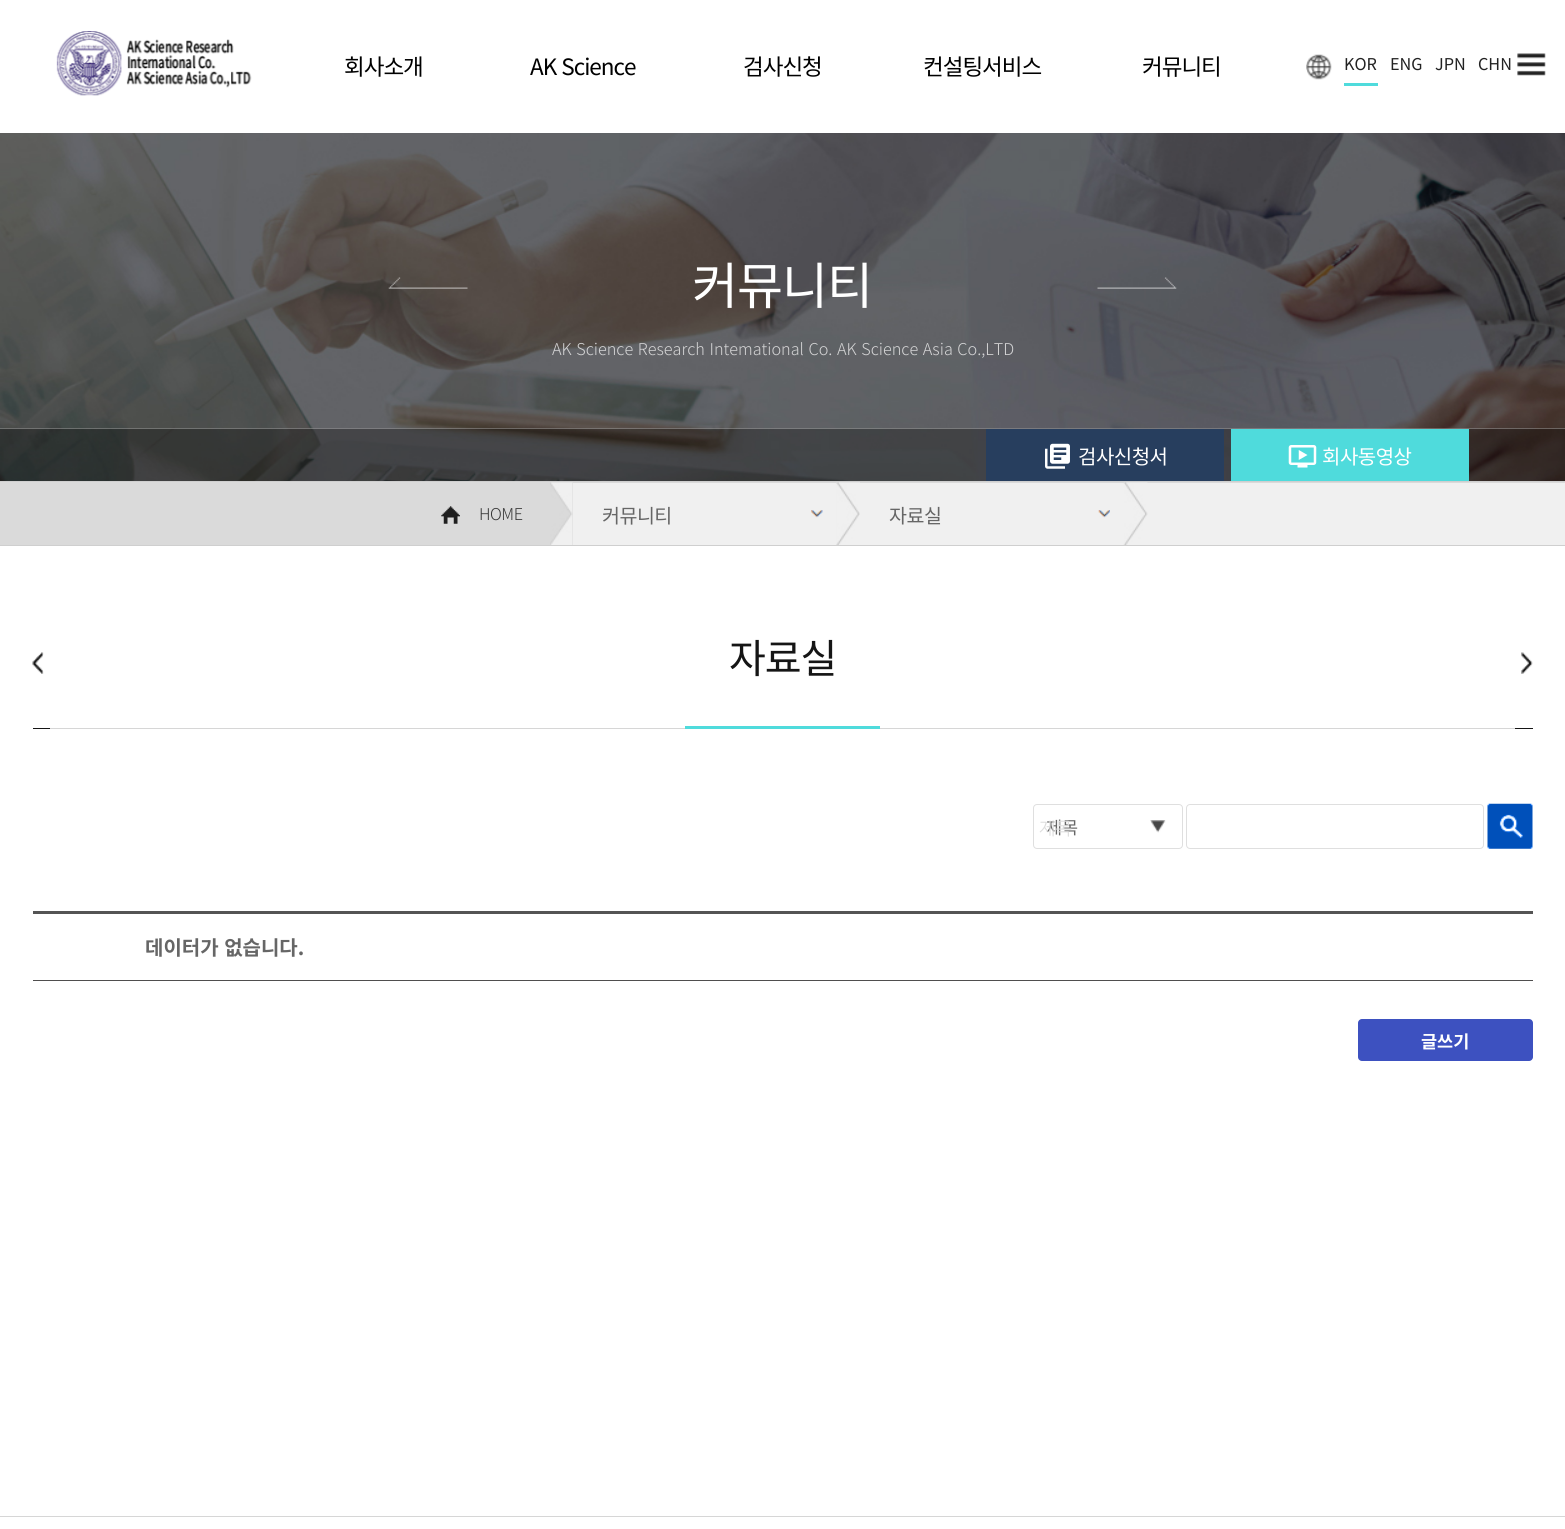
#include <cairo/cairo.h>
#include <math.h>
#include <stddef.h>


static void draw_spaced(cairo_t *cr, double x, double y, const char *s, double letter, double word) {
  cairo_move_to(cr, x, y);
  while (*s) {
    char ch[5] = {0};
    int n = 0;
    do ch[n++] = *s++; while ((*s & 0xC0) == 0x80);
    cairo_show_text(cr, ch);
    cairo_rel_move_to(cr, letter + word * (*ch == ' '), 0);
  }
}

static void rounded_rect(cairo_t *cr, double x, double y, double w, double h, double r) {
  cairo_new_sub_path(cr);
  cairo_arc(cr, x + w - r, y + h - r, r, 0, M_PI / 2);
  cairo_arc(cr, x + r, y + h - r, r, M_PI / 2, M_PI);
  cairo_arc(cr, x + r, y + r, r, M_PI, 1.5 * M_PI);
  cairo_arc(cr, x + w - r, y + r, r, 1.5 * M_PI, 2 * M_PI);
  cairo_close_path(cr);
}

static void draw_image(cairo_t *cr, const char *path, double x, double y, double w, double h) {
  cairo_surface_t *image = cairo_image_surface_create_from_png(path);
  cairo_save(cr);
  cairo_set_source_surface(cr, image, x, y);
  cairo_rectangle(cr, x, y, w, h);
  cairo_fill(cr);
  cairo_restore(cr);
  cairo_surface_destroy(image);
}

static void draw(cairo_t *cr) {
  cairo_set_source_rgb(cr, 1, 1, 1);
  cairo_paint(cr);
  draw_image(cr, "images/1.png", 56, 31, 196, 65);
  draw_image(cr, "images/2.png", 1306, 54, 26, 26);
  cairo_set_source_rgb(cr, 79 / 255.0, 219 / 255.0, 220 / 255.0);
  cairo_rectangle(cr, 1344, 83, 34, 3);
  cairo_fill(cr);
  draw_image(cr, "images/3.png", 1517, 53, 29, 23);
  draw_image(cr, "images/4.png", 0, 133, 1565, 348);
  draw_image(cr, "images/5.png", 388, 277, 80, 12);
  draw_image(cr, "images/6.png", 1097, 277, 80, 12);
  cairo_set_source_rgba(cr, 0, 0, 0, 0.3);
  cairo_rectangle(cr, 0, 428, 1565, 53);
  cairo_fill(cr);
  cairo_set_source_rgba(cr, 1, 1, 1, 0.3);
  cairo_rectangle(cr, 0, 428, 1565, 1);
  cairo_fill(cr);
  cairo_set_source_rgb(cr, 39 / 255.0, 62 / 255.0, 94 / 255.0);
  cairo_rectangle(cr, 986, 429, 238, 52);
  cairo_fill(cr);
  draw_image(cr, "images/7.png", 1045, 443, 25, 26);
  cairo_set_source_rgb(cr, 79 / 255.0, 219 / 255.0, 220 / 255.0);
  cairo_rectangle(cr, 1231, 429, 238, 52);
  cairo_fill(cr);
  draw_image(cr, "images/8.png", 1288, 445, 29, 23);
  cairo_set_source_rgb(cr, 218 / 255.0, 218 / 255.0, 218 / 255.0);
  cairo_rectangle(cr, 0, 482, 1565, 63);
  cairo_fill(cr);
  cairo_set_source_rgb(cr, 207 / 255.0, 207 / 255.0, 207 / 255.0);
  cairo_rectangle(cr, 0, 481, 1565, 1);
  cairo_fill(cr);
  cairo_rectangle(cr, 0, 545, 1565, 1);
  cairo_fill(cr);
  cairo_set_source_rgb(cr, 240 / 255.0, 240 / 255.0, 240 / 255.0);
  cairo_rectangle(cr, 573, 483, 992, 62);
  cairo_fill(cr);
  draw_image(cr, "images/9.png", 550, 482, 23, 63);
  draw_image(cr, "images/10.png", 441, 506, 19, 18);
  draw_image(cr, "images/11.png", 836, 482, 24, 63);
  draw_image(cr, "images/12.png", 811, 510, 12, 8);
  draw_image(cr, "images/13.png", 1123, 482, 25, 63);
  draw_image(cr, "images/14.png", 1098, 510, 12, 8);
  cairo_set_source_rgb(cr, 214 / 255.0, 214 / 255.0, 214 / 255.0);
  cairo_rectangle(cr, 50, 728, 1465, 1);
  cairo_fill(cr);
  cairo_set_source_rgb(cr, 21 / 255.0, 21 / 255.0, 21 / 255.0);
  cairo_rectangle(cr, 33, 728, 17, 1);
  cairo_fill(cr);
  draw_image(cr, "images/15.png", 32, 652, 12, 22);
  cairo_set_source_rgb(cr, 79 / 255.0, 219 / 255.0, 220 / 255.0);
  cairo_rectangle(cr, 685, 726, 195, 3);
  cairo_fill(cr);
  cairo_set_source_rgb(cr, 21 / 255.0, 21 / 255.0, 21 / 255.0);
  cairo_rectangle(cr, 1515, 728, 18, 1);
  cairo_fill(cr);
  draw_image(cr, "images/16.png", 1521, 652, 12, 22);
  draw_image(cr, "images/17.png", 1150, 820, 16, 13);
  rounded_rect(cr, 1033.5, 804.5, 149, 44, 3.5);
  cairo_set_source_rgb(cr, 223 / 255.0, 223 / 255.0, 223 / 255.0);
  cairo_set_line_width(cr, 1);
  cairo_stroke(cr);
  rounded_rect(cr, 1186.5, 804.5, 297, 44, 3.5);
  cairo_stroke(cr);
  draw_image(cr, "images/18.png", 1487, 803, 46, 46);
  cairo_set_source_rgb(cr, 84 / 255.0, 84 / 255.0, 84 / 255.0);
  cairo_rectangle(cr, 33, 911, 1500, 3);
  cairo_fill(cr);
  cairo_set_source_rgb(cr, 79 / 255.0, 78 / 255.0, 78 / 255.0);
  cairo_rectangle(cr, 33, 980, 1500, 1);
  cairo_fill(cr);
  cairo_set_source_rgb(cr, 61 / 255.0, 81 / 255.0, 192 / 255.0);
  rounded_rect(cr, 1358, 1019, 175, 42, 4);
  cairo_fill(cr);
  cairo_set_source_rgb(cr, 214 / 255.0, 214 / 255.0, 214 / 255.0);
  cairo_rectangle(cr, 0, 1516, 1565, 1);
  cairo_fill(cr);
  cairo_select_font_face(cr, "Noto Sans KR", CAIRO_FONT_SLANT_NORMAL, CAIRO_FONT_WEIGHT_NORMAL);
  cairo_set_font_size(cr, 22.5);
  cairo_set_source_rgb(cr, 0, 0, 0);
  draw_spaced(cr, 344, 75, "회사소개", -1, 0);
  draw_spaced(cr, 530, 75, "AK Science", -1, 1);
  draw_spaced(cr, 743, 75, "검사신청", -1, 0);
  draw_spaced(cr, 923, 75, "컨설팅서비스", -1, 0);
  draw_spaced(cr, 1142, 75, "커뮤니티", -1, 0);
  cairo_set_font_size(cr, 16.25);
  cairo_set_source_rgb(cr, 34 / 255.0, 34 / 255.0, 34 / 255.0);
  cairo_move_to(cr, 1344, 70);
  cairo_show_text(cr, "KOR");
  cairo_move_to(cr, 1390, 70);
  cairo_show_text(cr, "ENG");
  cairo_move_to(cr, 1435, 70);
  cairo_show_text(cr, "JPN");
  cairo_move_to(cr, 1478, 70);
  cairo_show_text(cr, "CHN");
  cairo_set_font_size(cr, 50);
  cairo_set_source_rgb(cr, 1, 1, 1);
  draw_spaced(cr, 692, 304, "커뮤니티", -1, 0);
  cairo_select_font_face(cr, "Noto Sans KR Light", CAIRO_FONT_SLANT_NORMAL, CAIRO_FONT_WEIGHT_NORMAL);
  cairo_set_font_size(cr, 16.25);
  cairo_set_source_rgb(cr, 212 / 255.0, 212 / 255.0, 213 / 255.0);
  draw_spaced(cr, 552, 355, "AK Science Research Intemational Co. AK Science Asia Co.,LTD", 0, 1);
  cairo_select_font_face(cr, "Noto Sans KR", CAIRO_FONT_SLANT_NORMAL, CAIRO_FONT_WEIGHT_NORMAL);
  cairo_set_font_size(cr, 20);
  cairo_set_source_rgb(cr, 1, 1, 1);
  draw_spaced(cr, 1078, 464, "검사신청서", -0.5, 0);
  draw_spaced(cr, 1322, 464, "회사동영상", -0.5, 0);
  cairo_select_font_face(cr, "Noto Sans KR Light", CAIRO_FONT_SLANT_NORMAL, CAIRO_FONT_WEIGHT_NORMAL);
  cairo_set_font_size(cr, 16.25);
  cairo_set_source_rgb(cr, 55 / 255.0, 55 / 255.0, 55 / 255.0);
  draw_spaced(cr, 479, 520, "HOME", -0.5, 0);
  cairo_select_font_face(cr, "Noto Sans KR", CAIRO_FONT_SLANT_NORMAL, CAIRO_FONT_WEIGHT_NORMAL);
  cairo_set_font_size(cr, 19.5);
  cairo_set_source_rgb(cr, 102 / 255.0, 102 / 255.0, 102 / 255.0);
  draw_spaced(cr, 602, 523, "커뮤니티", -0.5, 0);
  draw_spaced(cr, 889, 523, "자료실", -0.5, 0);
  cairo_set_font_size(cr, 40);
  cairo_set_source_rgb(cr, 21 / 255.0, 21 / 255.0, 21 / 255.0);
  draw_spaced(cr, 729, 673, "자료실", -1, 0);
  cairo_set_font_size(cr, 17.5);
  cairo_set_source_rgb(cr, 102 / 255.0, 102 / 255.0, 102 / 255.0);
  cairo_move_to(cr, 1046, 834);
  cairo_show_text(cr, "제목");
  cairo_select_font_face(cr, "NanumGothic", CAIRO_FONT_SLANT_NORMAL, CAIRO_FONT_WEIGHT_NORMAL);
  cairo_set_source_rgb(cr, 221 / 255.0, 221 / 255.0, 221 / 255.0);
  cairo_move_to(cr, 1039, 834);
  cairo_show_text(cr, "제목");
  cairo_select_font_face(cr, "Noto Sans KR", CAIRO_FONT_SLANT_NORMAL, CAIRO_FONT_WEIGHT_BOLD);
  cairo_set_font_size(cr, 20);
  cairo_set_source_rgb(cr, 102 / 255.0, 102 / 255.0, 102 / 255.0);
  draw_spaced(cr, 145, 955, "데이터가 없습니다.", 0, 1);
  cairo_set_font_size(cr, 17.5);
  cairo_set_source_rgb(cr, 1, 1, 1);
  cairo_move_to(cr, 1421, 1048);
  cairo_show_text(cr, "글쓰기");
}

int main(void) {
  cairo_surface_t *surface = cairo_image_surface_create(CAIRO_FORMAT_RGB24, 1565, 1529);
  cairo_t *cr = cairo_create(surface);
  cairo_font_options_t *options = cairo_font_options_create();
  cairo_font_options_set_hint_metrics(options, CAIRO_HINT_METRICS_OFF);
  cairo_font_options_set_hint_style(options, CAIRO_HINT_STYLE_NONE);
  cairo_set_font_options(cr, options);
  cairo_set_miter_limit(cr, 4);
  draw(cr);
  cairo_surface_write_to_png(surface, "out.png");
  cairo_font_options_destroy(options);
  cairo_destroy(cr);
  cairo_surface_destroy(surface);
  return 0;
}
